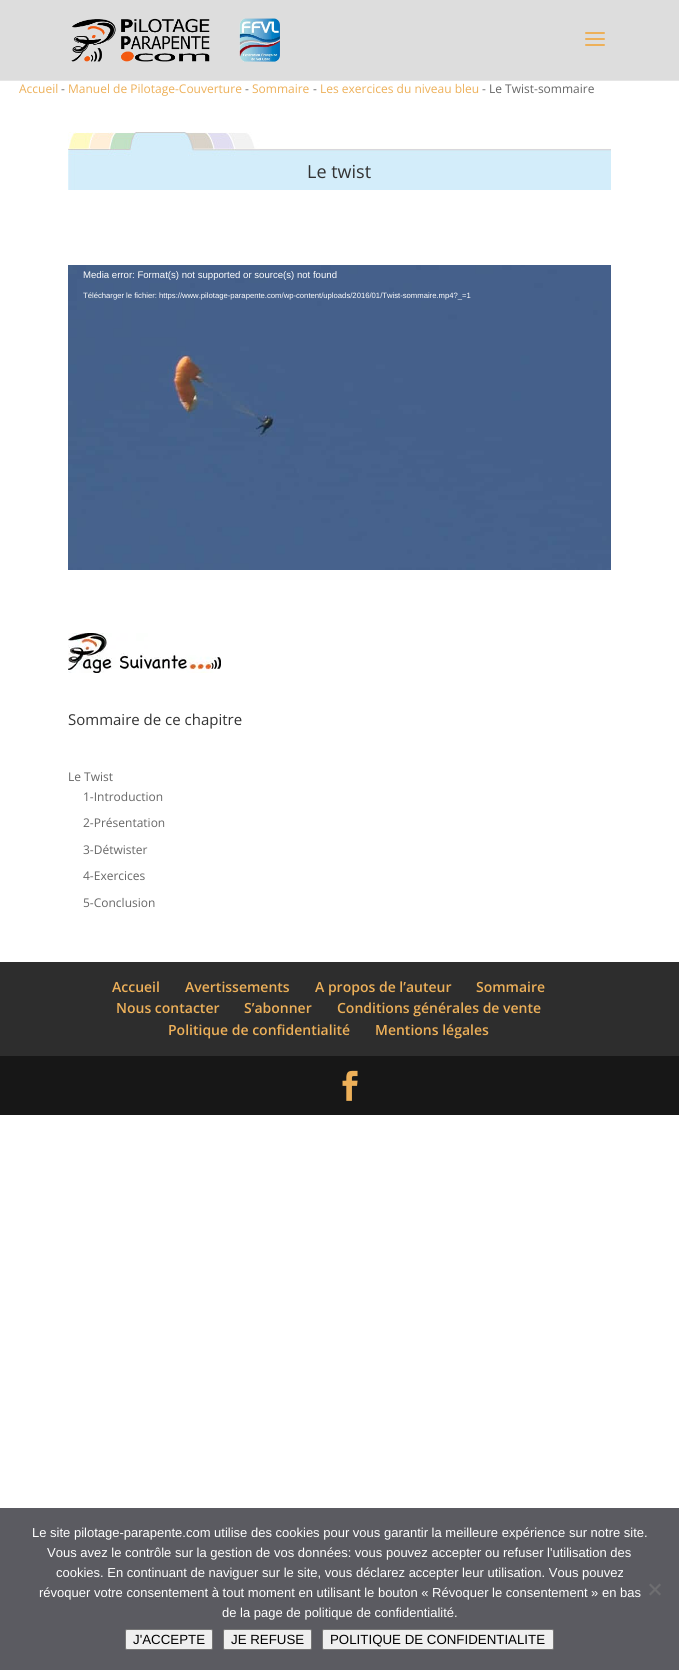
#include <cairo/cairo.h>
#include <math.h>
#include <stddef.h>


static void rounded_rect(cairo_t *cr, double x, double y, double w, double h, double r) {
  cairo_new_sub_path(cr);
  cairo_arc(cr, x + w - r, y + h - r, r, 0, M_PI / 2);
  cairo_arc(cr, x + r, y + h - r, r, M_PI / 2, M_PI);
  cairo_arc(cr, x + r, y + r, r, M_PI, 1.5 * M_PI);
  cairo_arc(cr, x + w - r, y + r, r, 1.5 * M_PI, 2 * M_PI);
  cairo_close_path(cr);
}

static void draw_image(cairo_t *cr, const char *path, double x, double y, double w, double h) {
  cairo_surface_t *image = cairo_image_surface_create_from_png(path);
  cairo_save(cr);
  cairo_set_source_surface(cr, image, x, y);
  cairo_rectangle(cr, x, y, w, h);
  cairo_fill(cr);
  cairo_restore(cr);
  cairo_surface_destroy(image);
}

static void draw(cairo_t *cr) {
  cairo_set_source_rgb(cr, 1, 1, 1);
  cairo_paint(cr);
  cairo_set_source_rgb(cr, 230 / 255.0, 230 / 255.0, 230 / 255.0);
  cairo_rectangle(cr, 0, 80, 679, 1);
  cairo_fill(cr);
  cairo_set_source_rgb(cr, 221 / 255.0, 221 / 255.0, 221 / 255.0);
  cairo_rectangle(cr, 0, 0, 679, 80);
  cairo_fill(cr);
  draw_image(cr, "images/1.png", 71, 18, 209, 44);
  draw_image(cr, "images/2.png", 585, 32, 20, 14);
  draw_image(cr, "images/3.png", 68, 132, 543, 58);
  draw_image(cr, "images/4.png", 68, 265, 543, 305);
  draw_image(cr, "images/5.png", 68, 633, 153, 40);
  cairo_set_source_rgb(cr, 45 / 255.0, 45 / 255.0, 45 / 255.0);
  cairo_rectangle(cr, 0, 962, 679, 94);
  cairo_fill(cr);
  cairo_set_source_rgb(cr, 23 / 255.0, 23 / 255.0, 23 / 255.0);
  cairo_rectangle(cr, 0, 1056, 679, 59);
  cairo_fill(cr);
  draw_image(cr, "images/6.png", 342, 1070, 16, 31);
  cairo_set_source_rgb(cr, 91 / 255.0, 91 / 255.0, 97 / 255.0);
  cairo_rectangle(cr, 0, 1508, 679, 162);
  cairo_fill(cr);
  cairo_set_source_rgb(cr, 110 / 255.0, 110 / 255.0, 113 / 255.0);
  cairo_new_path(cr);
  cairo_move_to(cr, 659.5, 1583.5);
  cairo_line_to(cr, 661, 1585);
  cairo_line_to(cr, 650.5, 1595.5);
  cairo_line_to(cr, 649, 1594);
  cairo_close_path(cr);
  cairo_fill(cr);
  cairo_new_path(cr);
  cairo_move_to(cr, 649, 1585);
  cairo_line_to(cr, 650.5, 1583.5);
  cairo_line_to(cr, 661, 1594);
  cairo_line_to(cr, 659.5, 1595.5);
  cairo_close_path(cr);
  cairo_fill(cr);
  cairo_set_source_rgb(cr, 239 / 255.0, 239 / 255.0, 239 / 255.0);
  rounded_rect(cr, 125.5, 1629.5, 87, 20, 1.5);
  cairo_fill_preserve(cr);
  cairo_set_source_rgb(cr, 118 / 255.0, 118 / 255.0, 118 / 255.0);
  cairo_set_line_width(cr, 1);
  cairo_stroke(cr);
  cairo_set_source_rgb(cr, 239 / 255.0, 239 / 255.0, 239 / 255.0);
  rounded_rect(cr, 223.5, 1629.5, 88, 20, 1.5);
  cairo_fill_preserve(cr);
  cairo_set_source_rgb(cr, 118 / 255.0, 118 / 255.0, 118 / 255.0);
  cairo_stroke(cr);
  cairo_set_source_rgb(cr, 239 / 255.0, 239 / 255.0, 239 / 255.0);
  rounded_rect(cr, 322.5, 1629.5, 231, 20, 1.5);
  cairo_fill_preserve(cr);
  cairo_set_source_rgb(cr, 118 / 255.0, 118 / 255.0, 118 / 255.0);
  cairo_stroke(cr);
  cairo_select_font_face(cr, "Open Sans", CAIRO_FONT_SLANT_NORMAL, CAIRO_FONT_WEIGHT_NORMAL);
  cairo_set_font_size(cr, 12);
  cairo_set_source_rgb(cr, 237 / 255.0, 176 / 255.0, 89 / 255.0);
  cairo_move_to(cr, 19, 93);
  cairo_show_text(cr, "Accueil");
  cairo_set_source_rgb(cr, 102 / 255.0, 102 / 255.0, 102 / 255.0);
  cairo_move_to(cr, 61, 93);
  cairo_show_text(cr, "-");
  cairo_set_source_rgb(cr, 237 / 255.0, 176 / 255.0, 89 / 255.0);
  cairo_move_to(cr, 68, 93);
  cairo_show_text(cr, "Manuel de Pilotage-Couverture");
  cairo_set_source_rgb(cr, 102 / 255.0, 102 / 255.0, 102 / 255.0);
  cairo_move_to(cr, 245, 93);
  cairo_show_text(cr, "-");
  cairo_set_source_rgb(cr, 237 / 255.0, 176 / 255.0, 89 / 255.0);
  cairo_move_to(cr, 252, 93);
  cairo_show_text(cr, "Sommaire");
  cairo_set_source_rgb(cr, 102 / 255.0, 102 / 255.0, 102 / 255.0);
  cairo_move_to(cr, 313, 93);
  cairo_show_text(cr, "-");
  cairo_set_source_rgb(cr, 237 / 255.0, 176 / 255.0, 89 / 255.0);
  cairo_move_to(cr, 320, 93);
  cairo_show_text(cr, "Les exercices du niveau bleu");
  cairo_set_source_rgb(cr, 102 / 255.0, 102 / 255.0, 102 / 255.0);
  cairo_move_to(cr, 482, 93);
  cairo_show_text(cr, "- Le Twist-sommaire");
  cairo_set_font_size(cr, 18);
  cairo_set_source_rgb(cr, 51 / 255.0, 51 / 255.0, 51 / 255.0);
  cairo_move_to(cr, 307, 178);
  cairo_show_text(cr, "Le twist");
  cairo_select_font_face(cr, "Liberation Sans", CAIRO_FONT_SLANT_NORMAL, CAIRO_FONT_WEIGHT_NORMAL);
  cairo_set_font_size(cr, 9.6);
  cairo_set_source_rgb(cr, 1, 1, 1);
  cairo_move_to(cr, 83, 278);
  cairo_show_text(cr, "Media error: Format(s) not supported or source(s) not found");
  cairo_set_font_size(cr, 7.68);
  cairo_move_to(cr, 83, 298);
  cairo_show_text(cr, "Télécharger le fichier: https://www.pilotage-parapente.com/wp-content/uploads/2016/01/Twist-sommaire.mp4?_=1");
  cairo_select_font_face(cr, "Open Sans", CAIRO_FONT_SLANT_NORMAL, CAIRO_FONT_WEIGHT_NORMAL);
  cairo_set_font_size(cr, 15);
  cairo_set_source_rgb(cr, 51 / 255.0, 51 / 255.0, 51 / 255.0);
  cairo_move_to(cr, 68, 725);
  cairo_show_text(cr, "Sommaire de ce chapitre");
  cairo_set_font_size(cr, 12);
  cairo_set_source_rgb(cr, 102 / 255.0, 102 / 255.0, 102 / 255.0);
  cairo_move_to(cr, 68, 781);
  cairo_show_text(cr, "Le Twist");
  cairo_move_to(cr, 83, 801);
  cairo_show_text(cr, "1-Introduction");
  cairo_move_to(cr, 83, 827);
  cairo_show_text(cr, "2-Présentation");
  cairo_move_to(cr, 83, 854);
  cairo_show_text(cr, "3-Détwister");
  cairo_move_to(cr, 83, 880);
  cairo_show_text(cr, "4-Exercices");
  cairo_move_to(cr, 83, 907);
  cairo_show_text(cr, "5-Conclusion");
  cairo_select_font_face(cr, "Open Sans SemiBold", CAIRO_FONT_SLANT_NORMAL, CAIRO_FONT_WEIGHT_NORMAL);
  cairo_set_font_size(cr, 14);
  cairo_set_source_rgb(cr, 237 / 255.0, 176 / 255.0, 89 / 255.0);
  cairo_move_to(cr, 112, 992);
  cairo_show_text(cr, "Accueil");
  cairo_move_to(cr, 185, 992);
  cairo_show_text(cr, "Avertissements");
  cairo_move_to(cr, 315, 992);
  cairo_show_text(cr, "A propos de l’auteur");
  cairo_move_to(cr, 476, 992);
  cairo_show_text(cr, "Sommaire");
  cairo_move_to(cr, 116, 1013);
  cairo_show_text(cr, "Nous contacter");
  cairo_move_to(cr, 244, 1013);
  cairo_show_text(cr, "S’abonner");
  cairo_move_to(cr, 337, 1013);
  cairo_show_text(cr, "Conditions générales de vente");
  cairo_move_to(cr, 168, 1035);
  cairo_show_text(cr, "Politique de confidentialité");
  cairo_move_to(cr, 375, 1035);
  cairo_show_text(cr, "Mentions légales");
  cairo_select_font_face(cr, "Liberation Sans", CAIRO_FONT_SLANT_NORMAL, CAIRO_FONT_WEIGHT_NORMAL);
  cairo_set_font_size(cr, 13);
  cairo_set_source_rgb(cr, 1, 1, 1);
  cairo_move_to(cr, 32, 1537);
  cairo_show_text(cr, "Le site pilotage-parapente.com utilise des cookies pour vous garantir la meilleure expérience sur notre site.");
  cairo_move_to(cr, 47, 1557);
  cairo_show_text(cr, "Vous avez le contrôle sur la gestion de vos données: vous pouvez accepter ou refuser l'utilisation des");
  cairo_move_to(cr, 56, 1577);
  cairo_show_text(cr, "cookies. En continuant de naviguer sur le site, vous déclarez accepter leur utilisation. Vous pouvez");
  cairo_move_to(cr, 39, 1597);
  cairo_show_text(cr, "révoquer votre consentement à tout moment en utilisant le bouton « Révoquer le consentement » en bas");
  cairo_move_to(cr, 222, 1617);
  cairo_show_text(cr, "de la page de politique de confidentialité.");
  cairo_set_font_size(cr, 13.3);
  cairo_set_source_rgb(cr, 0, 0, 0);
  cairo_move_to(cr, 133, 1644);
  cairo_show_text(cr, "J'ACCEPTE");
  cairo_move_to(cr, 231, 1644);
  cairo_show_text(cr, "JE REFUSE");
  cairo_move_to(cr, 330, 1644);
  cairo_show_text(cr, "POLITIQUE DE CONFIDENTIALITE");
}

int main(void) {
  cairo_surface_t *surface = cairo_image_surface_create(CAIRO_FORMAT_RGB24, 679, 1670);
  cairo_t *cr = cairo_create(surface);
  cairo_font_options_t *options = cairo_font_options_create();
  cairo_font_options_set_hint_metrics(options, CAIRO_HINT_METRICS_OFF);
  cairo_font_options_set_hint_style(options, CAIRO_HINT_STYLE_NONE);
  cairo_set_font_options(cr, options);
  cairo_set_miter_limit(cr, 4);
  draw(cr);
  cairo_surface_write_to_png(surface, "out.png");
  cairo_font_options_destroy(options);
  cairo_destroy(cr);
  cairo_surface_destroy(surface);
  return 0;
}
